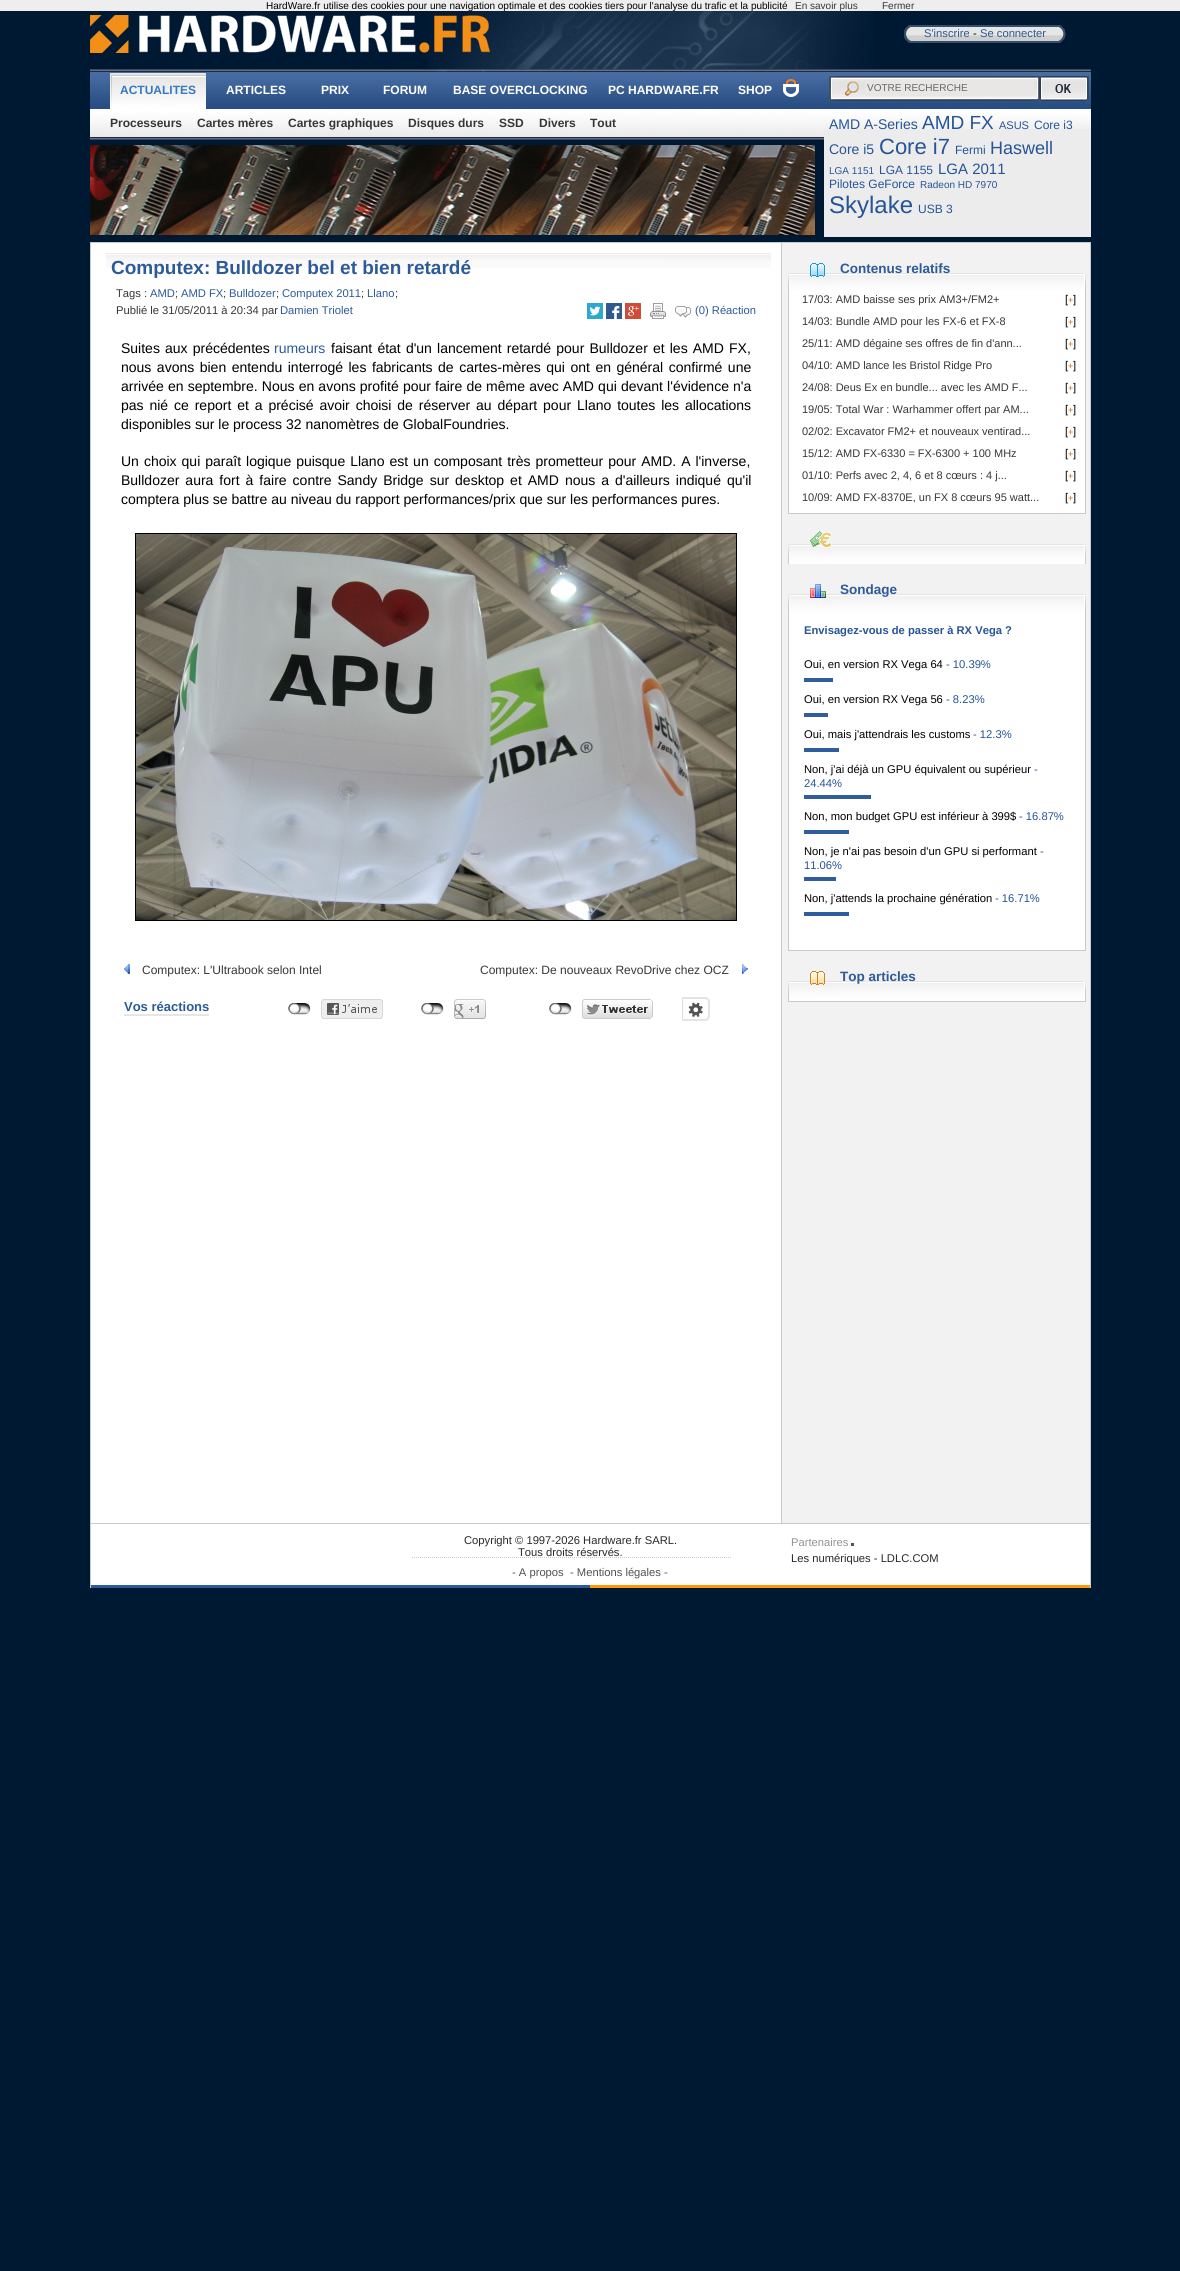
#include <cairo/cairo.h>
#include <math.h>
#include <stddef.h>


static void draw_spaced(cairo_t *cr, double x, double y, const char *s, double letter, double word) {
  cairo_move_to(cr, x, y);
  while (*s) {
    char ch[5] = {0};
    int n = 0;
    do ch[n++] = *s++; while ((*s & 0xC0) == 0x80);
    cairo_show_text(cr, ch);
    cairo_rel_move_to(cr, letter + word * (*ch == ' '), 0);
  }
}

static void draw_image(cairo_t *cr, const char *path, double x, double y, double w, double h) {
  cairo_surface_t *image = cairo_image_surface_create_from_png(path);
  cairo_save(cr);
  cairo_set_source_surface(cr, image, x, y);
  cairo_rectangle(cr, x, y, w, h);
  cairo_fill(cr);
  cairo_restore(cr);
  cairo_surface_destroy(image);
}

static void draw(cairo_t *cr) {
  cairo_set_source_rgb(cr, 0, 25 / 255.0, 50 / 255.0);
  cairo_paint(cr);
  cairo_set_source_rgb(cr, 238 / 255.0, 238 / 255.0, 238 / 255.0);
  cairo_rectangle(cr, 0, 0, 1180, 11);
  cairo_fill(cr);
  draw_image(cr, "images/1.png", 428, 11, 445, 58);
  draw_image(cr, "images/2.png", 90, 15, 400, 38);
  draw_image(cr, "images/3.png", 911, 25, 147, 18);
  draw_image(cr, "images/4.png", 904, 25, 7, 18);
  draw_image(cr, "images/5.png", 1058, 25, 8, 18);
  draw_image(cr, "images/6.png", 90, 69, 1001, 71);
  draw_image(cr, "images/7.png", 110, 73, 96, 36);
  draw_image(cr, "images/8.png", 783, 79, 16, 18);
  draw_image(cr, "images/9.png", 829, 76, 210, 25);
  draw_image(cr, "images/10.png", 845, 81, 14, 15);
  cairo_set_source_rgb(cr, 232 / 255.0, 231 / 255.0, 229 / 255.0);
  cairo_rectangle(cr, 865, 79, 169, 17);
  cairo_fill(cr);
  draw_image(cr, "images/11.png", 1039, 76, 50, 25);
  cairo_set_source_rgb(cr, 237 / 255.0, 236 / 255.0, 236 / 255.0);
  cairo_rectangle(cr, 824, 129, 267, 108);
  cairo_fill(cr);
  draw_image(cr, "images/12.png", 824, 110, 267, 19);
  draw_image(cr, "images/13.png", 90, 145, 725, 90);
  cairo_rectangle(cr, 90.5, 242.5, 1000, 1281);
  cairo_set_source_rgb(cr, 202 / 255.0, 202 / 255.0, 202 / 255.0);
  cairo_set_line_width(cr, 1);
  cairo_stroke(cr);
  cairo_set_source_rgb(cr, 242 / 255.0, 242 / 255.0, 242 / 255.0);
  cairo_rectangle(cr, 782, 243, 308, 1280);
  cairo_fill(cr);
  cairo_set_source_rgb(cr, 1, 1, 1);
  cairo_rectangle(cr, 91, 243, 690, 1280);
  cairo_fill(cr);
  cairo_set_source_rgb(cr, 202 / 255.0, 202 / 255.0, 202 / 255.0);
  cairo_rectangle(cr, 781, 243, 1, 1280);
  cairo_fill(cr);
  draw_image(cr, "images/14.png", 106, 253, 665, 15);
  draw_image(cr, "images/15.png", 587, 303, 16, 16);
  draw_image(cr, "images/16.png", 606, 303, 16, 16);
  draw_image(cr, "images/17.png", 625, 303, 16, 16);
  draw_image(cr, "images/18.png", 650, 303, 16, 16);
  draw_image(cr, "images/19.png", 675, 306, 16, 12);
  cairo_rectangle(cr, 135.5, 533.5, 601, 387);
  cairo_set_source_rgb(cr, 0, 0, 0);
  cairo_stroke(cr);
  draw_image(cr, "images/20.png", 136, 534, 600, 386);
  draw_image(cr, "images/21.png", 124, 964, 6, 10);
  draw_image(cr, "images/22.png", 742, 964, 6, 10);
  cairo_set_source_rgb(cr, 230 / 255.0, 230 / 255.0, 230 / 255.0);
  cairo_rectangle(cr, 124, 1014, 85, 2);
  cairo_fill(cr);
  draw_image(cr, "images/23.png", 288, 1003, 23, 12);
  draw_image(cr, "images/24.png", 321, 999, 62, 20);
  draw_image(cr, "images/23.png", 421, 1003, 23, 12);
  draw_image(cr, "images/25.png", 454, 999, 32, 20);
  draw_image(cr, "images/23.png", 549, 1003, 23, 12);
  draw_image(cr, "images/26.png", 582, 999, 71, 20);
  draw_image(cr, "images/27.png", 688, 1002, 15, 15);
  cairo_set_source_rgb(cr, 231 / 255.0, 227 / 255.0, 227 / 255.0);
  cairo_new_path(cr);
  cairo_move_to(cr, 682, 997);
  cairo_line_to(cr, 683, 999);
  cairo_line_to(cr, 705, 999);
  cairo_curve_to(cr, 706, 999, 706.5, 999.5, 707, 1000);
  cairo_line_to(cr, 708.5, 998.5);
  cairo_curve_to(cr, 708, 997.5, 706.5, 997, 705, 997);
  cairo_close_path(cr);
  cairo_fill(cr);
  cairo_new_path(cr);
  cairo_move_to(cr, 710, 1016);
  cairo_line_to(cr, 710, 1002);
  cairo_curve_to(cr, 710, 1000.5, 709.5, 999, 708.5, 998.5);
  cairo_line_to(cr, 707, 1000);
  cairo_curve_to(cr, 707.5, 1000.5, 708, 1001, 708, 1002);
  cairo_line_to(cr, 708, 1016);
  cairo_curve_to(cr, 708, 1017, 707.5, 1017.5, 707, 1018);
  cairo_line_to(cr, 708.5, 1019.5);
  cairo_curve_to(cr, 709.5, 1019, 710, 1017.5, 710, 1016);
  cairo_close_path(cr);
  cairo_fill(cr);
  cairo_new_path(cr);
  cairo_move_to(cr, 705, 1021);
  cairo_curve_to(cr, 706.5, 1021, 708, 1020.5, 708.5, 1019.5);
  cairo_line_to(cr, 707, 1018);
  cairo_curve_to(cr, 706.5, 1018.5, 706, 1019, 705, 1019);
  cairo_line_to(cr, 683, 1019);
  cairo_line_to(cr, 682, 1021);
  cairo_close_path(cr);
  cairo_fill(cr);
  cairo_set_source_rgb(cr, 221 / 255.0, 221 / 255.0, 221 / 255.0);
  cairo_new_path(cr);
  cairo_move_to(cr, 682, 997);
  cairo_line_to(cr, 682, 1021);
  cairo_line_to(cr, 683, 1019);
  cairo_line_to(cr, 683, 999);
  cairo_close_path(cr);
  cairo_fill(cr);
  draw_image(cr, "images/28.png", 788, 273, 298, 20);
  draw_image(cr, "images/29.png", 810, 263, 16, 14);
  cairo_set_source_rgb(cr, 1, 1, 1);
  cairo_rectangle(cr, 789, 293, 296, 220);
  cairo_fill(cr);
  cairo_set_source_rgb(cr, 202 / 255.0, 202 / 255.0, 202 / 255.0);
  cairo_rectangle(cr, 1085, 293, 1, 221);
  cairo_fill(cr);
  cairo_rectangle(cr, 788, 513, 298, 1);
  cairo_fill(cr);
  cairo_rectangle(cr, 788, 293, 1, 221);
  cairo_fill(cr);
  draw_image(cr, "images/28.png", 788, 544, 298, 20);
  draw_image(cr, "images/30.png", 810, 531, 22, 17);
  cairo_set_source_rgb(cr, 1, 1, 1);
  cairo_rectangle(cr, 789, 614, 296, 336);
  cairo_fill(cr);
  draw_image(cr, "images/28.png", 788, 594, 298, 20);
  draw_image(cr, "images/31.png", 810, 583, 16, 15);
  cairo_set_source_rgb(cr, 202 / 255.0, 202 / 255.0, 202 / 255.0);
  cairo_rectangle(cr, 1085, 614, 1, 337);
  cairo_fill(cr);
  cairo_rectangle(cr, 788, 950, 298, 1);
  cairo_fill(cr);
  cairo_rectangle(cr, 788, 614, 1, 337);
  cairo_fill(cr);
  cairo_set_source_rgb(cr, 48 / 255.0, 93 / 255.0, 156 / 255.0);
  cairo_rectangle(cr, 804, 678, 29, 4);
  cairo_fill(cr);
  cairo_rectangle(cr, 804, 713, 24, 4);
  cairo_fill(cr);
  cairo_rectangle(cr, 804, 748, 35, 4);
  cairo_fill(cr);
  cairo_rectangle(cr, 804, 795, 67, 4);
  cairo_fill(cr);
  cairo_rectangle(cr, 804, 830, 45, 4);
  cairo_fill(cr);
  cairo_rectangle(cr, 804, 877, 32, 4);
  cairo_fill(cr);
  cairo_rectangle(cr, 804, 912, 45, 4);
  cairo_fill(cr);
  draw_image(cr, "images/28.png", 788, 981, 298, 20);
  draw_image(cr, "images/32.png", 810, 971, 16, 14);
  cairo_set_source_rgb(cr, 202 / 255.0, 202 / 255.0, 202 / 255.0);
  cairo_rectangle(cr, 788, 1001, 298, 1);
  cairo_fill(cr);
  cairo_set_source_rgb(cr, 1, 1, 1);
  cairo_rectangle(cr, 91, 1524, 999, 61);
  cairo_fill(cr);
  draw_image(cr, "images/33.png", 91, 1585, 999, 3);
  cairo_set_source_rgb(cr, 202 / 255.0, 202 / 255.0, 202 / 255.0);
  cairo_rectangle(cr, 1090, 1524, 1, 64);
  cairo_fill(cr);
  cairo_rectangle(cr, 90, 1524, 1, 64);
  cairo_fill(cr);
  draw_image(cr, "images/34.png", 412, 1557, 319, 1);
  cairo_set_source_rgb(cr, 82 / 255.0, 82 / 255.0, 82 / 255.0);
  cairo_rectangle(cr, 851, 1543, 3, 3);
  cairo_fill(cr);
  cairo_select_font_face(cr, "Arimo", CAIRO_FONT_SLANT_NORMAL, CAIRO_FONT_WEIGHT_NORMAL);
  cairo_set_font_size(cr, 10);
  cairo_set_source_rgb(cr, 0, 0, 0);
  cairo_move_to(cr, 266, 9);
  cairo_show_text(cr, "HardWare.fr utilise des cookies pour une navigation optimale et des cookies tiers pour l'analyse du trafic et la publicité");
  cairo_set_source_rgb(cr, 55 / 255.0, 55 / 255.0, 55 / 255.0);
  cairo_move_to(cr, 795, 9);
  cairo_show_text(cr, "En savoir plus");
  cairo_move_to(cr, 882, 9);
  cairo_show_text(cr, "Fermer");
  cairo_set_font_size(cr, 11.2);
  cairo_set_source_rgb(cr, 45 / 255.0, 90 / 255.0, 154 / 255.0);
  cairo_move_to(cr, 924, 37);
  cairo_show_text(cr, "S'inscrire");
  cairo_set_source_rgb(cr, 0, 0, 0);
  cairo_move_to(cr, 973, 37);
  cairo_show_text(cr, "-");
  cairo_set_source_rgb(cr, 45 / 255.0, 90 / 255.0, 154 / 255.0);
  cairo_move_to(cr, 980, 37);
  cairo_show_text(cr, "Se connecter");
  cairo_select_font_face(cr, "Arimo", CAIRO_FONT_SLANT_NORMAL, CAIRO_FONT_WEIGHT_BOLD);
  cairo_set_font_size(cr, 12);
  cairo_set_source_rgb(cr, 54 / 255.0, 121 / 255.0, 195 / 255.0);
  cairo_move_to(cr, 120, 94);
  cairo_show_text(cr, "ACTUALITES");
  cairo_set_source_rgb(cr, 1, 1, 254 / 255.0);
  cairo_move_to(cr, 226, 94);
  cairo_show_text(cr, "ARTICLES");
  cairo_move_to(cr, 321, 94);
  cairo_show_text(cr, "PRIX");
  cairo_move_to(cr, 383, 94);
  cairo_show_text(cr, "FORUM");
  cairo_move_to(cr, 453, 94);
  cairo_show_text(cr, "BASE OVERCLOCKING");
  cairo_move_to(cr, 608, 94);
  cairo_show_text(cr, "PC HARDWARE.FR");
  cairo_move_to(cr, 738, 94);
  cairo_show_text(cr, "SHOP");
  cairo_select_font_face(cr, "Liberation Sans", CAIRO_FONT_SLANT_NORMAL, CAIRO_FONT_WEIGHT_NORMAL);
  cairo_set_font_size(cr, 10);
  cairo_set_source_rgb(cr, 103 / 255.0, 103 / 255.0, 103 / 255.0);
  cairo_move_to(cr, 867, 91);
  cairo_show_text(cr, "VOTRE RECHERCHE");
  cairo_select_font_face(cr, "Arimo", CAIRO_FONT_SLANT_NORMAL, CAIRO_FONT_WEIGHT_BOLD);
  cairo_set_font_size(cr, 12);
  cairo_set_source_rgb(cr, 55 / 255.0, 55 / 255.0, 55 / 255.0);
  cairo_move_to(cr, 110, 127);
  cairo_show_text(cr, "Processeurs");
  cairo_move_to(cr, 197, 127);
  cairo_show_text(cr, "Cartes mères");
  cairo_move_to(cr, 288, 127);
  cairo_show_text(cr, "Cartes graphiques");
  cairo_move_to(cr, 408, 127);
  cairo_show_text(cr, "Disques durs");
  cairo_move_to(cr, 499, 127);
  cairo_show_text(cr, "SSD");
  cairo_move_to(cr, 539, 127);
  cairo_show_text(cr, "Divers");
  cairo_move_to(cr, 590, 127);
  cairo_show_text(cr, "Tout");
  cairo_select_font_face(cr, "Arimo", CAIRO_FONT_SLANT_NORMAL, CAIRO_FONT_WEIGHT_NORMAL);
  cairo_set_font_size(cr, 14);
  cairo_set_source_rgb(cr, 38 / 255.0, 85 / 255.0, 151 / 255.0);
  cairo_move_to(cr, 829, 129);
  cairo_show_text(cr, "AMD A-Series");
  cairo_set_font_size(cr, 19);
  cairo_move_to(cr, 922, 129);
  cairo_show_text(cr, "AMD FX");
  cairo_set_font_size(cr, 11);
  cairo_move_to(cr, 999, 129);
  cairo_show_text(cr, "ASUS");
  cairo_set_font_size(cr, 12);
  cairo_move_to(cr, 1034, 129);
  cairo_show_text(cr, "Core i3");
  cairo_set_font_size(cr, 14);
  cairo_move_to(cr, 829, 154);
  cairo_show_text(cr, "Core i5");
  cairo_set_font_size(cr, 22);
  cairo_move_to(cr, 879, 154);
  cairo_show_text(cr, "Core i7");
  cairo_set_font_size(cr, 12);
  cairo_move_to(cr, 955, 154);
  cairo_show_text(cr, "Fermi");
  cairo_set_font_size(cr, 18);
  cairo_move_to(cr, 990, 154);
  cairo_show_text(cr, "Haswell");
  cairo_set_font_size(cr, 10);
  cairo_move_to(cr, 829, 174);
  cairo_show_text(cr, "LGA 1151");
  cairo_set_font_size(cr, 12);
  cairo_move_to(cr, 879, 174);
  cairo_show_text(cr, "LGA 1155");
  cairo_set_font_size(cr, 15);
  cairo_move_to(cr, 938, 174);
  cairo_show_text(cr, "LGA 2011");
  cairo_set_font_size(cr, 12);
  cairo_move_to(cr, 829, 188);
  cairo_show_text(cr, "Pilotes GeForce");
  cairo_set_font_size(cr, 10);
  cairo_move_to(cr, 920, 188);
  cairo_show_text(cr, "Radeon HD 7970");
  cairo_set_font_size(cr, 24);
  cairo_move_to(cr, 829, 213);
  cairo_show_text(cr, "Skylake");
  cairo_set_font_size(cr, 12);
  cairo_move_to(cr, 918, 213);
  cairo_show_text(cr, "USB 3");
  cairo_select_font_face(cr, "Arimo", CAIRO_FONT_SLANT_NORMAL, CAIRO_FONT_WEIGHT_BOLD);
  cairo_set_font_size(cr, 19);
  cairo_set_source_rgb(cr, 45 / 255.0, 90 / 255.0, 154 / 255.0);
  cairo_move_to(cr, 111, 274);
  cairo_show_text(cr, "Computex: Bulldozer bel et bien retardé");
  cairo_select_font_face(cr, "Arimo", CAIRO_FONT_SLANT_NORMAL, CAIRO_FONT_WEIGHT_NORMAL);
  cairo_set_font_size(cr, 11.2);
  cairo_set_source_rgb(cr, 55 / 255.0, 55 / 255.0, 55 / 255.0);
  cairo_move_to(cr, 116, 297);
  cairo_show_text(cr, "Tags :");
  cairo_set_source_rgb(cr, 45 / 255.0, 90 / 255.0, 154 / 255.0);
  cairo_move_to(cr, 150, 297);
  cairo_show_text(cr, "AMD");
  cairo_set_source_rgb(cr, 55 / 255.0, 55 / 255.0, 55 / 255.0);
  cairo_move_to(cr, 175, 297);
  cairo_show_text(cr, ";");
  cairo_set_source_rgb(cr, 45 / 255.0, 90 / 255.0, 154 / 255.0);
  cairo_move_to(cr, 181, 297);
  cairo_show_text(cr, "AMD FX");
  cairo_set_source_rgb(cr, 55 / 255.0, 55 / 255.0, 55 / 255.0);
  cairo_move_to(cr, 223, 297);
  cairo_show_text(cr, ";");
  cairo_set_source_rgb(cr, 45 / 255.0, 90 / 255.0, 154 / 255.0);
  cairo_move_to(cr, 229, 297);
  cairo_show_text(cr, "Bulldozer");
  cairo_set_source_rgb(cr, 55 / 255.0, 55 / 255.0, 55 / 255.0);
  cairo_move_to(cr, 276, 297);
  cairo_show_text(cr, ";");
  cairo_set_source_rgb(cr, 45 / 255.0, 90 / 255.0, 154 / 255.0);
  cairo_move_to(cr, 282, 297);
  cairo_show_text(cr, "Computex 2011");
  cairo_set_source_rgb(cr, 55 / 255.0, 55 / 255.0, 55 / 255.0);
  cairo_move_to(cr, 361, 297);
  cairo_show_text(cr, ";");
  cairo_set_source_rgb(cr, 45 / 255.0, 90 / 255.0, 154 / 255.0);
  cairo_move_to(cr, 367, 297);
  cairo_show_text(cr, "Llano");
  cairo_set_source_rgb(cr, 55 / 255.0, 55 / 255.0, 55 / 255.0);
  cairo_move_to(cr, 395, 297);
  cairo_show_text(cr, ";");
  cairo_move_to(cr, 116, 314);
  cairo_show_text(cr, "Publié le 31/05/2011 à 20:34 par");
  cairo_set_source_rgb(cr, 45 / 255.0, 90 / 255.0, 154 / 255.0);
  cairo_move_to(cr, 280, 314);
  cairo_show_text(cr, "Damien Triolet");
  cairo_move_to(cr, 695, 314);
  cairo_show_text(cr, "(0) Réaction");
  cairo_set_font_size(cr, 14);
  cairo_set_source_rgb(cr, 0, 0, 0);
  draw_spaced(cr, 121, 353, "Suites aux précédentes", 0, 1.25);
  cairo_set_source_rgb(cr, 45 / 255.0, 90 / 255.0, 154 / 255.0);
  cairo_move_to(cr, 274, 353);
  cairo_show_text(cr, "rumeurs");
  cairo_set_source_rgb(cr, 0, 0, 0);
  draw_spaced(cr, 331, 353, "faisant état d'un lancement retardé pour Bulldozer et les AMD FX,", 0, 1.25);
  draw_spaced(cr, 121, 372, "nous avons bien entendu interrogé les fabricants de cartes-mères qui ont en général confirmé une", 0, 1.6);
  draw_spaced(cr, 121, 391, "arrivée en septembre. Nous en avons profité pour faire de même avec AMD qui devant l'évidence n'a", 0, 0.25);
  draw_spaced(cr, 121, 410, "pas nié ce report et a précisé avoir choisi de réserver au départ pour Llano toutes les allocations", 0, 2);
  cairo_move_to(cr, 121, 429);
  cairo_show_text(cr, "disponibles sur le process 32 nanomètres de GlobalFoundries.");
  draw_spaced(cr, 121, 466, "Un choix qui paraît logique puisque Llano est un composant très prometteur pour AMD. A l'inverse,", 0, 1.1);
  draw_spaced(cr, 121, 485, "Bulldozer aura fort à faire contre Sandy Bridge sur desktop et AMD nous a d'ailleurs indiqué qu'il", 0, 2.1);
  cairo_move_to(cr, 121, 504);
  cairo_show_text(cr, "comptera plus se battre au niveau du rapport performances/prix que sur les performances pures.");
  cairo_set_font_size(cr, 12);
  cairo_set_source_rgb(cr, 55 / 255.0, 55 / 255.0, 55 / 255.0);
  cairo_move_to(cr, 142, 974);
  cairo_show_text(cr, "Computex: L'Ultrabook selon Intel");
  cairo_move_to(cr, 480, 974);
  cairo_show_text(cr, "Computex: De nouveaux RevoDrive chez OCZ");
  cairo_select_font_face(cr, "Arimo", CAIRO_FONT_SLANT_NORMAL, CAIRO_FONT_WEIGHT_BOLD);
  cairo_set_font_size(cr, 13);
  cairo_set_source_rgb(cr, 45 / 255.0, 90 / 255.0, 154 / 255.0);
  cairo_move_to(cr, 124, 1011);
  cairo_show_text(cr, "Vos réactions");
  cairo_set_font_size(cr, 13.5);
  cairo_move_to(cr, 840, 273);
  cairo_show_text(cr, "Contenus relatifs");
  cairo_select_font_face(cr, "Arimo", CAIRO_FONT_SLANT_NORMAL, CAIRO_FONT_WEIGHT_NORMAL);
  cairo_set_font_size(cr, 11);
  cairo_set_source_rgb(cr, 55 / 255.0, 55 / 255.0, 55 / 255.0);
  cairo_move_to(cr, 802, 303);
  cairo_show_text(cr, "17/03: AMD baisse ses prix AM3+/FM2+");
  cairo_set_font_size(cr, 11.2);
  cairo_set_source_rgb(cr, 0, 0, 0);
  cairo_move_to(cr, 1065, 303);
  cairo_show_text(cr, "[");
  cairo_set_font_size(cr, 9);
  cairo_set_source_rgb(cr, 204 / 255.0, 105 / 255.0, 8 / 255.0);
  cairo_move_to(cr, 1068, 303);
  cairo_show_text(cr, "+");
  cairo_set_font_size(cr, 11.2);
  cairo_set_source_rgb(cr, 0, 0, 0);
  cairo_move_to(cr, 1073, 303);
  cairo_show_text(cr, "]");
  cairo_set_font_size(cr, 11);
  cairo_set_source_rgb(cr, 55 / 255.0, 55 / 255.0, 55 / 255.0);
  cairo_move_to(cr, 802, 325);
  cairo_show_text(cr, "14/03: Bundle AMD pour les FX-6 et FX-8");
  cairo_set_font_size(cr, 11.2);
  cairo_set_source_rgb(cr, 0, 0, 0);
  cairo_move_to(cr, 1065, 325);
  cairo_show_text(cr, "[");
  cairo_set_font_size(cr, 9);
  cairo_set_source_rgb(cr, 204 / 255.0, 105 / 255.0, 8 / 255.0);
  cairo_move_to(cr, 1068, 325);
  cairo_show_text(cr, "+");
  cairo_set_font_size(cr, 11.2);
  cairo_set_source_rgb(cr, 0, 0, 0);
  cairo_move_to(cr, 1073, 325);
  cairo_show_text(cr, "]");
  cairo_set_font_size(cr, 11);
  cairo_set_source_rgb(cr, 55 / 255.0, 55 / 255.0, 55 / 255.0);
  cairo_move_to(cr, 802, 347);
  cairo_show_text(cr, "25/11: AMD dégaine ses offres de fin d'ann...");
  cairo_set_font_size(cr, 11.2);
  cairo_set_source_rgb(cr, 0, 0, 0);
  cairo_move_to(cr, 1065, 347);
  cairo_show_text(cr, "[");
  cairo_set_font_size(cr, 9);
  cairo_set_source_rgb(cr, 204 / 255.0, 105 / 255.0, 8 / 255.0);
  cairo_move_to(cr, 1068, 347);
  cairo_show_text(cr, "+");
  cairo_set_font_size(cr, 11.2);
  cairo_set_source_rgb(cr, 0, 0, 0);
  cairo_move_to(cr, 1073, 347);
  cairo_show_text(cr, "]");
  cairo_set_font_size(cr, 11);
  cairo_set_source_rgb(cr, 55 / 255.0, 55 / 255.0, 55 / 255.0);
  cairo_move_to(cr, 802, 369);
  cairo_show_text(cr, "04/10: AMD lance les Bristol Ridge Pro");
  cairo_set_font_size(cr, 11.2);
  cairo_set_source_rgb(cr, 0, 0, 0);
  cairo_move_to(cr, 1065, 369);
  cairo_show_text(cr, "[");
  cairo_set_font_size(cr, 9);
  cairo_set_source_rgb(cr, 204 / 255.0, 105 / 255.0, 8 / 255.0);
  cairo_move_to(cr, 1068, 369);
  cairo_show_text(cr, "+");
  cairo_set_font_size(cr, 11.2);
  cairo_set_source_rgb(cr, 0, 0, 0);
  cairo_move_to(cr, 1073, 369);
  cairo_show_text(cr, "]");
  cairo_set_font_size(cr, 11);
  cairo_set_source_rgb(cr, 55 / 255.0, 55 / 255.0, 55 / 255.0);
  cairo_move_to(cr, 802, 391);
  cairo_show_text(cr, "24/08: Deus Ex en bundle... avec les AMD F...");
  cairo_set_font_size(cr, 11.2);
  cairo_set_source_rgb(cr, 0, 0, 0);
  cairo_move_to(cr, 1065, 391);
  cairo_show_text(cr, "[");
  cairo_set_font_size(cr, 9);
  cairo_set_source_rgb(cr, 204 / 255.0, 105 / 255.0, 8 / 255.0);
  cairo_move_to(cr, 1068, 391);
  cairo_show_text(cr, "+");
  cairo_set_font_size(cr, 11.2);
  cairo_set_source_rgb(cr, 0, 0, 0);
  cairo_move_to(cr, 1073, 391);
  cairo_show_text(cr, "]");
  cairo_set_font_size(cr, 11);
  cairo_set_source_rgb(cr, 55 / 255.0, 55 / 255.0, 55 / 255.0);
  cairo_move_to(cr, 802, 413);
  cairo_show_text(cr, "19/05: Total War : Warhammer offert par AM...");
  cairo_set_font_size(cr, 11.2);
  cairo_set_source_rgb(cr, 0, 0, 0);
  cairo_move_to(cr, 1065, 413);
  cairo_show_text(cr, "[");
  cairo_set_font_size(cr, 9);
  cairo_set_source_rgb(cr, 204 / 255.0, 105 / 255.0, 8 / 255.0);
  cairo_move_to(cr, 1068, 413);
  cairo_show_text(cr, "+");
  cairo_set_font_size(cr, 11.2);
  cairo_set_source_rgb(cr, 0, 0, 0);
  cairo_move_to(cr, 1073, 413);
  cairo_show_text(cr, "]");
  cairo_set_font_size(cr, 11);
  cairo_set_source_rgb(cr, 55 / 255.0, 55 / 255.0, 55 / 255.0);
  cairo_move_to(cr, 802, 435);
  cairo_show_text(cr, "02/02: Excavator FM2+ et nouveaux ventirad...");
  cairo_set_font_size(cr, 11.2);
  cairo_set_source_rgb(cr, 0, 0, 0);
  cairo_move_to(cr, 1065, 435);
  cairo_show_text(cr, "[");
  cairo_set_font_size(cr, 9);
  cairo_set_source_rgb(cr, 204 / 255.0, 105 / 255.0, 8 / 255.0);
  cairo_move_to(cr, 1068, 435);
  cairo_show_text(cr, "+");
  cairo_set_font_size(cr, 11.2);
  cairo_set_source_rgb(cr, 0, 0, 0);
  cairo_move_to(cr, 1073, 435);
  cairo_show_text(cr, "]");
  cairo_set_font_size(cr, 11);
  cairo_set_source_rgb(cr, 55 / 255.0, 55 / 255.0, 55 / 255.0);
  cairo_move_to(cr, 802, 457);
  cairo_show_text(cr, "15/12: AMD FX-6330 = FX-6300 + 100 MHz");
  cairo_set_font_size(cr, 11.2);
  cairo_set_source_rgb(cr, 0, 0, 0);
  cairo_move_to(cr, 1065, 457);
  cairo_show_text(cr, "[");
  cairo_set_font_size(cr, 9);
  cairo_set_source_rgb(cr, 204 / 255.0, 105 / 255.0, 8 / 255.0);
  cairo_move_to(cr, 1068, 457);
  cairo_show_text(cr, "+");
  cairo_set_font_size(cr, 11.2);
  cairo_set_source_rgb(cr, 0, 0, 0);
  cairo_move_to(cr, 1073, 457);
  cairo_show_text(cr, "]");
  cairo_set_font_size(cr, 11);
  cairo_set_source_rgb(cr, 55 / 255.0, 55 / 255.0, 55 / 255.0);
  cairo_move_to(cr, 802, 479);
  cairo_show_text(cr, "01/10: Perfs avec 2, 4, 6 et 8 cœurs : 4 j...");
  cairo_set_font_size(cr, 11.2);
  cairo_set_source_rgb(cr, 0, 0, 0);
  cairo_move_to(cr, 1065, 479);
  cairo_show_text(cr, "[");
  cairo_set_font_size(cr, 9);
  cairo_set_source_rgb(cr, 204 / 255.0, 105 / 255.0, 8 / 255.0);
  cairo_move_to(cr, 1068, 479);
  cairo_show_text(cr, "+");
  cairo_set_font_size(cr, 11.2);
  cairo_set_source_rgb(cr, 0, 0, 0);
  cairo_move_to(cr, 1073, 479);
  cairo_show_text(cr, "]");
  cairo_set_font_size(cr, 11);
  cairo_set_source_rgb(cr, 55 / 255.0, 55 / 255.0, 55 / 255.0);
  cairo_move_to(cr, 802, 501);
  cairo_show_text(cr, "10/09: AMD FX-8370E, un FX 8 cœurs 95 watt...");
  cairo_set_font_size(cr, 11.2);
  cairo_set_source_rgb(cr, 0, 0, 0);
  cairo_move_to(cr, 1065, 501);
  cairo_show_text(cr, "[");
  cairo_set_font_size(cr, 9);
  cairo_set_source_rgb(cr, 204 / 255.0, 105 / 255.0, 8 / 255.0);
  cairo_move_to(cr, 1068, 501);
  cairo_show_text(cr, "+");
  cairo_set_font_size(cr, 11.2);
  cairo_set_source_rgb(cr, 0, 0, 0);
  cairo_move_to(cr, 1073, 501);
  cairo_show_text(cr, "]");
  cairo_select_font_face(cr, "Arimo", CAIRO_FONT_SLANT_NORMAL, CAIRO_FONT_WEIGHT_BOLD);
  cairo_set_font_size(cr, 13.5);
  cairo_set_source_rgb(cr, 45 / 255.0, 90 / 255.0, 154 / 255.0);
  cairo_move_to(cr, 840, 594);
  cairo_show_text(cr, "Sondage");
  cairo_set_font_size(cr, 11.2);
  cairo_set_source_rgb(cr, 38 / 255.0, 85 / 255.0, 151 / 255.0);
  cairo_move_to(cr, 804, 634);
  cairo_show_text(cr, "Envisagez-vous de passer à RX Vega ?");
  cairo_select_font_face(cr, "Arimo", CAIRO_FONT_SLANT_NORMAL, CAIRO_FONT_WEIGHT_NORMAL);
  cairo_set_source_rgb(cr, 0, 0, 0);
  cairo_move_to(cr, 804, 668);
  cairo_show_text(cr, "Oui, en version RX Vega 64");
  cairo_set_source_rgb(cr, 38 / 255.0, 85 / 255.0, 151 / 255.0);
  cairo_move_to(cr, 946, 668);
  cairo_show_text(cr, "- 10.39%");
  cairo_set_source_rgb(cr, 0, 0, 0);
  cairo_move_to(cr, 804, 703);
  cairo_show_text(cr, "Oui, en version RX Vega 56");
  cairo_set_source_rgb(cr, 38 / 255.0, 85 / 255.0, 151 / 255.0);
  cairo_move_to(cr, 946, 703);
  cairo_show_text(cr, "- 8.23%");
  cairo_set_source_rgb(cr, 0, 0, 0);
  cairo_move_to(cr, 804, 738);
  cairo_show_text(cr, "Oui, mais j'attendrais les customs");
  cairo_set_source_rgb(cr, 38 / 255.0, 85 / 255.0, 151 / 255.0);
  cairo_move_to(cr, 973, 738);
  cairo_show_text(cr, "- 12.3%");
  cairo_set_source_rgb(cr, 0, 0, 0);
  cairo_move_to(cr, 804, 773);
  cairo_show_text(cr, "Non, j'ai déjà un GPU équivalent ou supérieur");
  cairo_set_source_rgb(cr, 38 / 255.0, 85 / 255.0, 151 / 255.0);
  cairo_move_to(cr, 1034, 773);
  cairo_show_text(cr, "-");
  cairo_move_to(cr, 804, 787);
  cairo_show_text(cr, "24.44%");
  cairo_set_source_rgb(cr, 0, 0, 0);
  cairo_move_to(cr, 804, 820);
  cairo_show_text(cr, "Non, mon budget GPU est inférieur à 399$");
  cairo_set_source_rgb(cr, 38 / 255.0, 85 / 255.0, 151 / 255.0);
  cairo_move_to(cr, 1019, 820);
  cairo_show_text(cr, "- 16.87%");
  cairo_set_source_rgb(cr, 0, 0, 0);
  cairo_move_to(cr, 804, 855);
  cairo_show_text(cr, "Non, je n'ai pas besoin d'un GPU si performant");
  cairo_set_source_rgb(cr, 38 / 255.0, 85 / 255.0, 151 / 255.0);
  cairo_move_to(cr, 1040, 855);
  cairo_show_text(cr, "-");
  cairo_move_to(cr, 804, 869);
  cairo_show_text(cr, "11.06%");
  cairo_set_source_rgb(cr, 0, 0, 0);
  cairo_move_to(cr, 804, 902);
  cairo_show_text(cr, "Non, j'attends la prochaine génération");
  cairo_set_source_rgb(cr, 38 / 255.0, 85 / 255.0, 151 / 255.0);
  cairo_move_to(cr, 995, 902);
  cairo_show_text(cr, "- 16.71%");
  cairo_select_font_face(cr, "Arimo", CAIRO_FONT_SLANT_NORMAL, CAIRO_FONT_WEIGHT_BOLD);
  cairo_set_font_size(cr, 13.5);
  cairo_set_source_rgb(cr, 45 / 255.0, 90 / 255.0, 154 / 255.0);
  cairo_move_to(cr, 840, 981);
  cairo_show_text(cr, "Top articles");
  cairo_select_font_face(cr, "Arimo", CAIRO_FONT_SLANT_NORMAL, CAIRO_FONT_WEIGHT_NORMAL);
  cairo_set_font_size(cr, 11.2);
  cairo_set_source_rgb(cr, 41 / 255.0, 41 / 255.0, 41 / 255.0);
  cairo_move_to(cr, 464, 1544);
  cairo_show_text(cr, "Copyright © 1997-2026 Hardware.fr SARL.");
  cairo_move_to(cr, 518, 1556);
  cairo_show_text(cr, "Tous droits réservés.");
  cairo_set_source_rgb(cr, 148 / 255.0, 148 / 255.0, 148 / 255.0);
  cairo_move_to(cr, 791, 1546);
  cairo_show_text(cr, "Partenaires");
  cairo_set_source_rgb(cr, 41 / 255.0, 41 / 255.0, 41 / 255.0);
  cairo_move_to(cr, 791, 1562);
  cairo_show_text(cr, "Les numériques - LDLC.COM");
  cairo_set_source_rgb(cr, 82 / 255.0, 82 / 255.0, 82 / 255.0);
  cairo_move_to(cr, 512, 1576);
  cairo_show_text(cr, "- A propos");
  cairo_move_to(cr, 570, 1576);
  cairo_show_text(cr, "- Mentions légales -");
}

int main(void) {
  cairo_surface_t *surface = cairo_image_surface_create(CAIRO_FORMAT_RGB24, 1180, 2271);
  cairo_t *cr = cairo_create(surface);
  cairo_font_options_t *options = cairo_font_options_create();
  cairo_font_options_set_hint_metrics(options, CAIRO_HINT_METRICS_OFF);
  cairo_font_options_set_hint_style(options, CAIRO_HINT_STYLE_NONE);
  cairo_set_font_options(cr, options);
  cairo_set_miter_limit(cr, 4);
  draw(cr);
  cairo_surface_write_to_png(surface, "out.png");
  cairo_font_options_destroy(options);
  cairo_destroy(cr);
  cairo_surface_destroy(surface);
  return 0;
}
